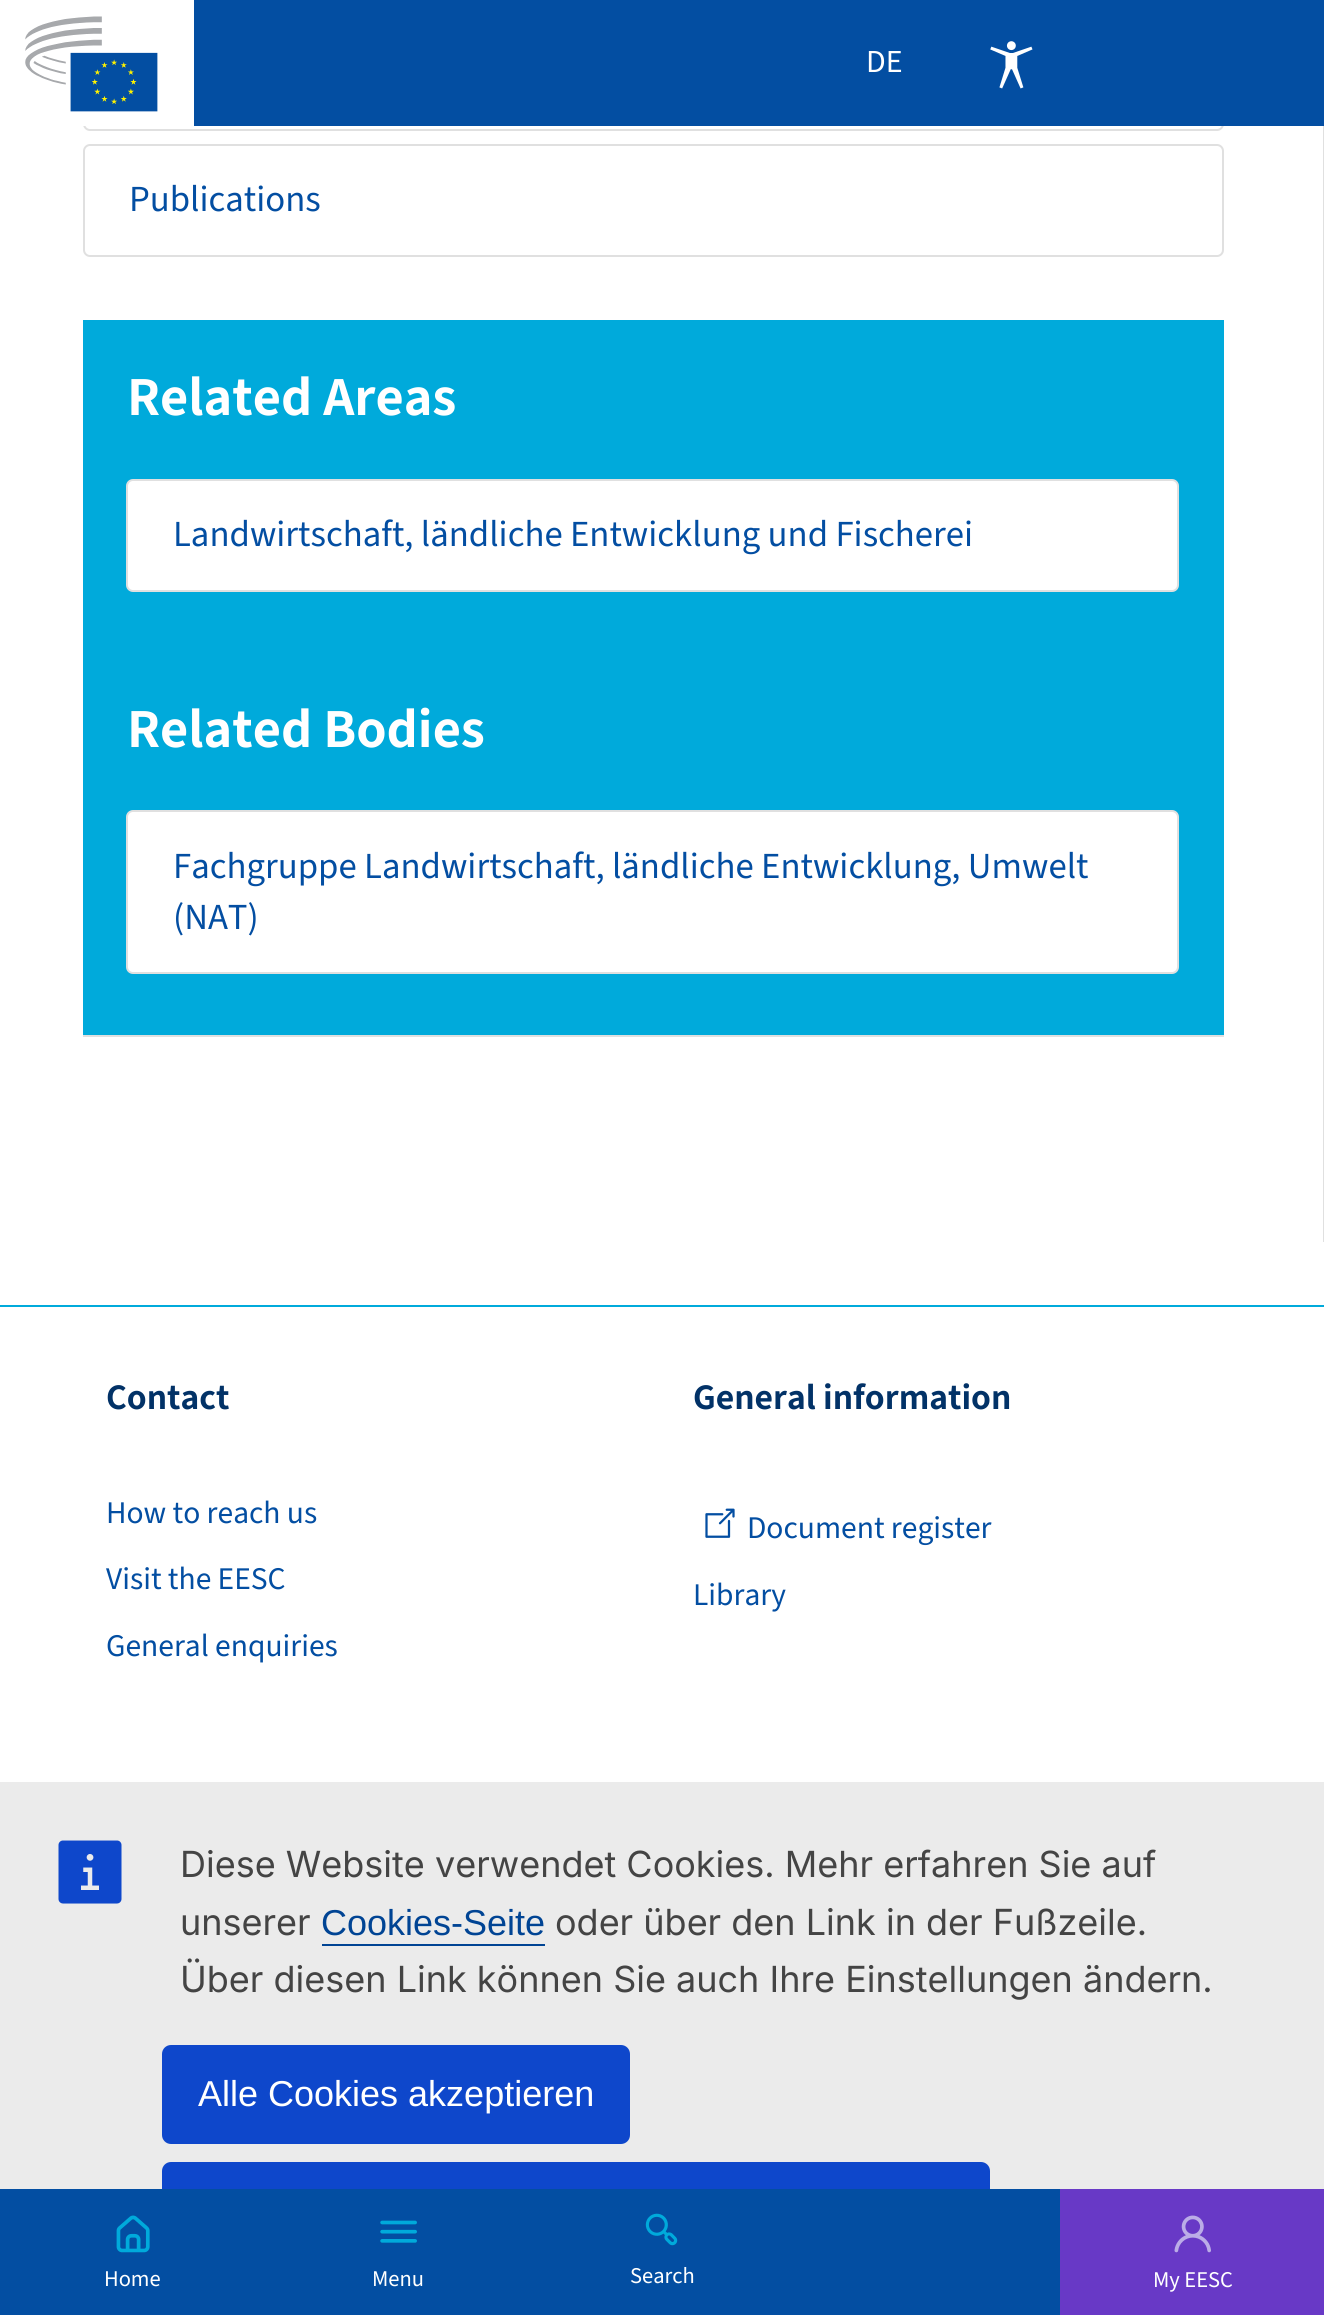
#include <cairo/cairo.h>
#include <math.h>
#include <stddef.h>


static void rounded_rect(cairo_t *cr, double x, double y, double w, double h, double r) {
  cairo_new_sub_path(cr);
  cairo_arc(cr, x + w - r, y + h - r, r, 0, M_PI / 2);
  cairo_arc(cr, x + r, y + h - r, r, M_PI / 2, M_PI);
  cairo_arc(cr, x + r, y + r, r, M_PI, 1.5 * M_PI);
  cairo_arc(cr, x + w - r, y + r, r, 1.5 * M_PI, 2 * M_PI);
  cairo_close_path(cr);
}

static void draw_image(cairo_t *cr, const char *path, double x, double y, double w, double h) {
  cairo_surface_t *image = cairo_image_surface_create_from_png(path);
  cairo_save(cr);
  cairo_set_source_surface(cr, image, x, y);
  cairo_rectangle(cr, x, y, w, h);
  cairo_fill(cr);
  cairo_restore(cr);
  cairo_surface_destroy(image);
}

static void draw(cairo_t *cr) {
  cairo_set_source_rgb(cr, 1, 1, 1);
  cairo_paint(cr);
  rounded_rect(cr, 84, 17, 1139, 113, 6);
  cairo_set_source_rgb(cr, 224 / 255.0, 224 / 255.0, 224 / 255.0);
  cairo_stroke(cr);
  cairo_set_source_rgb(cr, 1, 1, 1);
  cairo_rectangle(cr, 83, 16, 111, 110);
  cairo_fill(cr);
  draw_image(cr, "images/1.png", 25, 16, 133, 96);
  cairo_set_source_rgb(cr, 3 / 255.0, 78 / 255.0, 162 / 255.0);
  cairo_rectangle(cr, 194, 0, 1130, 126);
  cairo_fill(cr);
  cairo_set_source_rgb(cr, 235 / 255.0, 235 / 255.0, 235 / 255.0);
  cairo_rectangle(cr, 0, 1782, 1324, 407);
  cairo_fill(cr);
  cairo_set_source_rgb(cr, 14 / 255.0, 71 / 255.0, 203 / 255.0);
  rounded_rect(cr, 162, 2162, 828, 99, 9);
  cairo_fill(cr);
  cairo_set_source_rgb(cr, 3 / 255.0, 78 / 255.0, 162 / 255.0);
  cairo_rectangle(cr, 0, 2189, 1060, 126);
  cairo_fill(cr);
  draw_image(cr, "images/2.png", 990, 41, 43, 48);
  draw_image(cr, "images/3.png", 116, 2215, 34, 38);
  draw_image(cr, "images/4.png", 380, 2220, 37, 23);
  draw_image(cr, "images/5.png", 645, 2213, 33, 33);
  cairo_set_source_rgb(cr, 104 / 255.0, 57 / 255.0, 198 / 255.0);
  cairo_rectangle(cr, 1060, 2189, 264, 126);
  cairo_fill(cr);
  draw_image(cr, "images/6.png", 1174, 2215, 37, 38);
  cairo_set_source_rgb(cr, 224 / 255.0, 224 / 255.0, 224 / 255.0);
  cairo_rectangle(cr, 1323, 126, 1, 1116);
  cairo_fill(cr);
  rounded_rect(cr, 84, 145, 1139, 111, 6);
  cairo_stroke(cr);
  cairo_set_source_rgb(cr, 0, 170 / 255.0, 219 / 255.0);
  cairo_rectangle(cr, 83, 320, 1141, 715);
  cairo_fill(cr);
  cairo_set_source_rgb(cr, 1, 1, 1);
  rounded_rect(cr, 127, 480, 1051, 111, 6);
  cairo_fill_preserve(cr);
  cairo_set_source_rgb(cr, 224 / 255.0, 224 / 255.0, 224 / 255.0);
  cairo_stroke(cr);
  cairo_set_source_rgb(cr, 1, 1, 1);
  rounded_rect(cr, 127, 811, 1051, 162, 6);
  cairo_fill_preserve(cr);
  cairo_set_source_rgb(cr, 224 / 255.0, 224 / 255.0, 224 / 255.0);
  cairo_stroke(cr);
  cairo_rectangle(cr, 83, 1035, 1141, 2);
  cairo_fill(cr);
  cairo_set_source_rgb(cr, 0, 170 / 255.0, 219 / 255.0);
  cairo_rectangle(cr, 0, 1305, 1324, 2);
  cairo_fill(cr);
  draw_image(cr, "images/7.png", 705, 1508, 30, 30);
  draw_image(cr, "images/8.png", 58, 1840, 64, 64);
  cairo_set_source_rgb(cr, 0, 68 / 255.0, 148 / 255.0);
  cairo_rectangle(cr, 322, 1944, 223, 2);
  cairo_fill(cr);
  cairo_set_source_rgb(cr, 14 / 255.0, 71 / 255.0, 203 / 255.0);
  rounded_rect(cr, 162, 2045, 468, 99, 9);
  cairo_fill(cr);
  cairo_select_font_face(cr, "Source Sans 3", CAIRO_FONT_SLANT_NORMAL, CAIRO_FONT_WEIGHT_NORMAL);
  cairo_set_font_size(cr, 32);
  cairo_set_source_rgb(cr, 1, 1, 1);
  cairo_move_to(cr, 866, 72);
  cairo_show_text(cr, "DE");
  cairo_set_font_size(cr, 22.5);
  cairo_move_to(cr, 104, 2286);
  cairo_show_text(cr, "Home");
  cairo_move_to(cr, 372, 2286);
  cairo_show_text(cr, "Menu");
  cairo_move_to(cr, 630, 2283);
  cairo_show_text(cr, "Search");
  cairo_move_to(cr, 1153, 2287);
  cairo_show_text(cr, "My EESC");
  cairo_set_font_size(cr, 36.75);
  cairo_set_source_rgb(cr, 3 / 255.0, 78 / 255.0, 162 / 255.0);
  cairo_move_to(cr, 129, 211);
  cairo_show_text(cr, "Publications");
  cairo_select_font_face(cr, "Source Sans 3 SemiBold", CAIRO_FONT_SLANT_NORMAL, CAIRO_FONT_WEIGHT_NORMAL);
  cairo_set_font_size(cr, 55);
  cairo_set_source_rgb(cr, 1, 1, 1);
  cairo_move_to(cr, 127, 415);
  cairo_show_text(cr, "Related Areas");
  cairo_select_font_face(cr, "Source Sans 3", CAIRO_FONT_SLANT_NORMAL, CAIRO_FONT_WEIGHT_NORMAL);
  cairo_set_font_size(cr, 36.75);
  cairo_set_source_rgb(cr, 3 / 255.0, 78 / 255.0, 162 / 255.0);
  cairo_move_to(cr, 173, 546);
  cairo_show_text(cr, "Landwirtschaft, ländliche Entwicklung und Fischerei");
  cairo_select_font_face(cr, "Source Sans 3 SemiBold", CAIRO_FONT_SLANT_NORMAL, CAIRO_FONT_WEIGHT_NORMAL);
  cairo_set_font_size(cr, 55);
  cairo_set_source_rgb(cr, 1, 1, 1);
  cairo_move_to(cr, 127, 747);
  cairo_show_text(cr, "Related Bodies");
  cairo_select_font_face(cr, "Source Sans 3", CAIRO_FONT_SLANT_NORMAL, CAIRO_FONT_WEIGHT_NORMAL);
  cairo_set_font_size(cr, 36.75);
  cairo_set_source_rgb(cr, 3 / 255.0, 78 / 255.0, 162 / 255.0);
  cairo_move_to(cr, 173, 878);
  cairo_show_text(cr, "Fachgruppe Landwirtschaft, ländliche Entwicklung, Umwelt");
  cairo_move_to(cr, 173, 929);
  cairo_show_text(cr, "(NAT)");
  cairo_select_font_face(cr, "Source Sans 3 SemiBold", CAIRO_FONT_SLANT_NORMAL, CAIRO_FONT_WEIGHT_NORMAL);
  cairo_set_font_size(cr, 36);
  cairo_set_source_rgb(cr, 2 / 255.0, 50 / 255.0, 103 / 255.0);
  cairo_move_to(cr, 106, 1409);
  cairo_show_text(cr, "Contact");
  cairo_select_font_face(cr, "Source Sans 3", CAIRO_FONT_SLANT_NORMAL, CAIRO_FONT_WEIGHT_NORMAL);
  cairo_set_font_size(cr, 31.5);
  cairo_set_source_rgb(cr, 3 / 255.0, 78 / 255.0, 162 / 255.0);
  cairo_move_to(cr, 106, 1523);
  cairo_show_text(cr, "How to reach us");
  cairo_move_to(cr, 106, 1589);
  cairo_show_text(cr, "Visit the EESC");
  cairo_move_to(cr, 106, 1656);
  cairo_show_text(cr, "General enquiries");
  cairo_select_font_face(cr, "Source Sans 3 SemiBold", CAIRO_FONT_SLANT_NORMAL, CAIRO_FONT_WEIGHT_NORMAL);
  cairo_set_font_size(cr, 36);
  cairo_set_source_rgb(cr, 2 / 255.0, 50 / 255.0, 103 / 255.0);
  cairo_move_to(cr, 693, 1409);
  cairo_show_text(cr, "General information");
  cairo_select_font_face(cr, "Source Sans 3", CAIRO_FONT_SLANT_NORMAL, CAIRO_FONT_WEIGHT_NORMAL);
  cairo_set_font_size(cr, 31.5);
  cairo_set_source_rgb(cr, 3 / 255.0, 78 / 255.0, 162 / 255.0);
  cairo_move_to(cr, 747, 1538);
  cairo_show_text(cr, "Document register");
  cairo_move_to(cr, 693, 1605);
  cairo_show_text(cr, "Library");
  cairo_select_font_face(cr, "Inter", CAIRO_FONT_SLANT_NORMAL, CAIRO_FONT_WEIGHT_NORMAL);
  cairo_set_font_size(cr, 36);
  cairo_set_source_rgb(cr, 68 / 255.0, 68 / 255.0, 68 / 255.0);
  cairo_move_to(cr, 180, 1877);
  cairo_show_text(cr, "Diese Website verwendet Cookies. Mehr erfahren Sie auf");
  cairo_move_to(cr, 180, 1935);
  cairo_show_text(cr, "unserer");
  cairo_select_font_face(cr, "Liberation Sans", CAIRO_FONT_SLANT_NORMAL, CAIRO_FONT_WEIGHT_NORMAL);
  cairo_set_source_rgb(cr, 0, 68 / 255.0, 148 / 255.0);
  cairo_move_to(cr, 321, 1935);
  cairo_show_text(cr, "Cookies-Seite");
  cairo_select_font_face(cr, "Inter", CAIRO_FONT_SLANT_NORMAL, CAIRO_FONT_WEIGHT_NORMAL);
  cairo_set_source_rgb(cr, 68 / 255.0, 68 / 255.0, 68 / 255.0);
  cairo_move_to(cr, 555, 1935);
  cairo_show_text(cr, "oder über den Link in der Fußzeile.");
  cairo_move_to(cr, 180, 1992);
  cairo_show_text(cr, "Über diesen Link können Sie auch Ihre Einstellungen ändern.");
  cairo_select_font_face(cr, "Liberation Sans", CAIRO_FONT_SLANT_NORMAL, CAIRO_FONT_WEIGHT_NORMAL);
  cairo_set_source_rgb(cr, 1, 1, 1);
  cairo_move_to(cr, 198, 2106);
  cairo_show_text(cr, "Alle Cookies akzeptieren");
}

int main(void) {
  cairo_surface_t *surface = cairo_image_surface_create(CAIRO_FORMAT_RGB24, 1324, 2315);
  cairo_t *cr = cairo_create(surface);
  cairo_font_options_t *options = cairo_font_options_create();
  cairo_font_options_set_hint_metrics(options, CAIRO_HINT_METRICS_OFF);
  cairo_font_options_set_hint_style(options, CAIRO_HINT_STYLE_NONE);
  cairo_set_font_options(cr, options);
  cairo_set_miter_limit(cr, 4);
  draw(cr);
  cairo_surface_write_to_png(surface, "out.png");
  cairo_font_options_destroy(options);
  cairo_destroy(cr);
  cairo_surface_destroy(surface);
  return 0;
}
